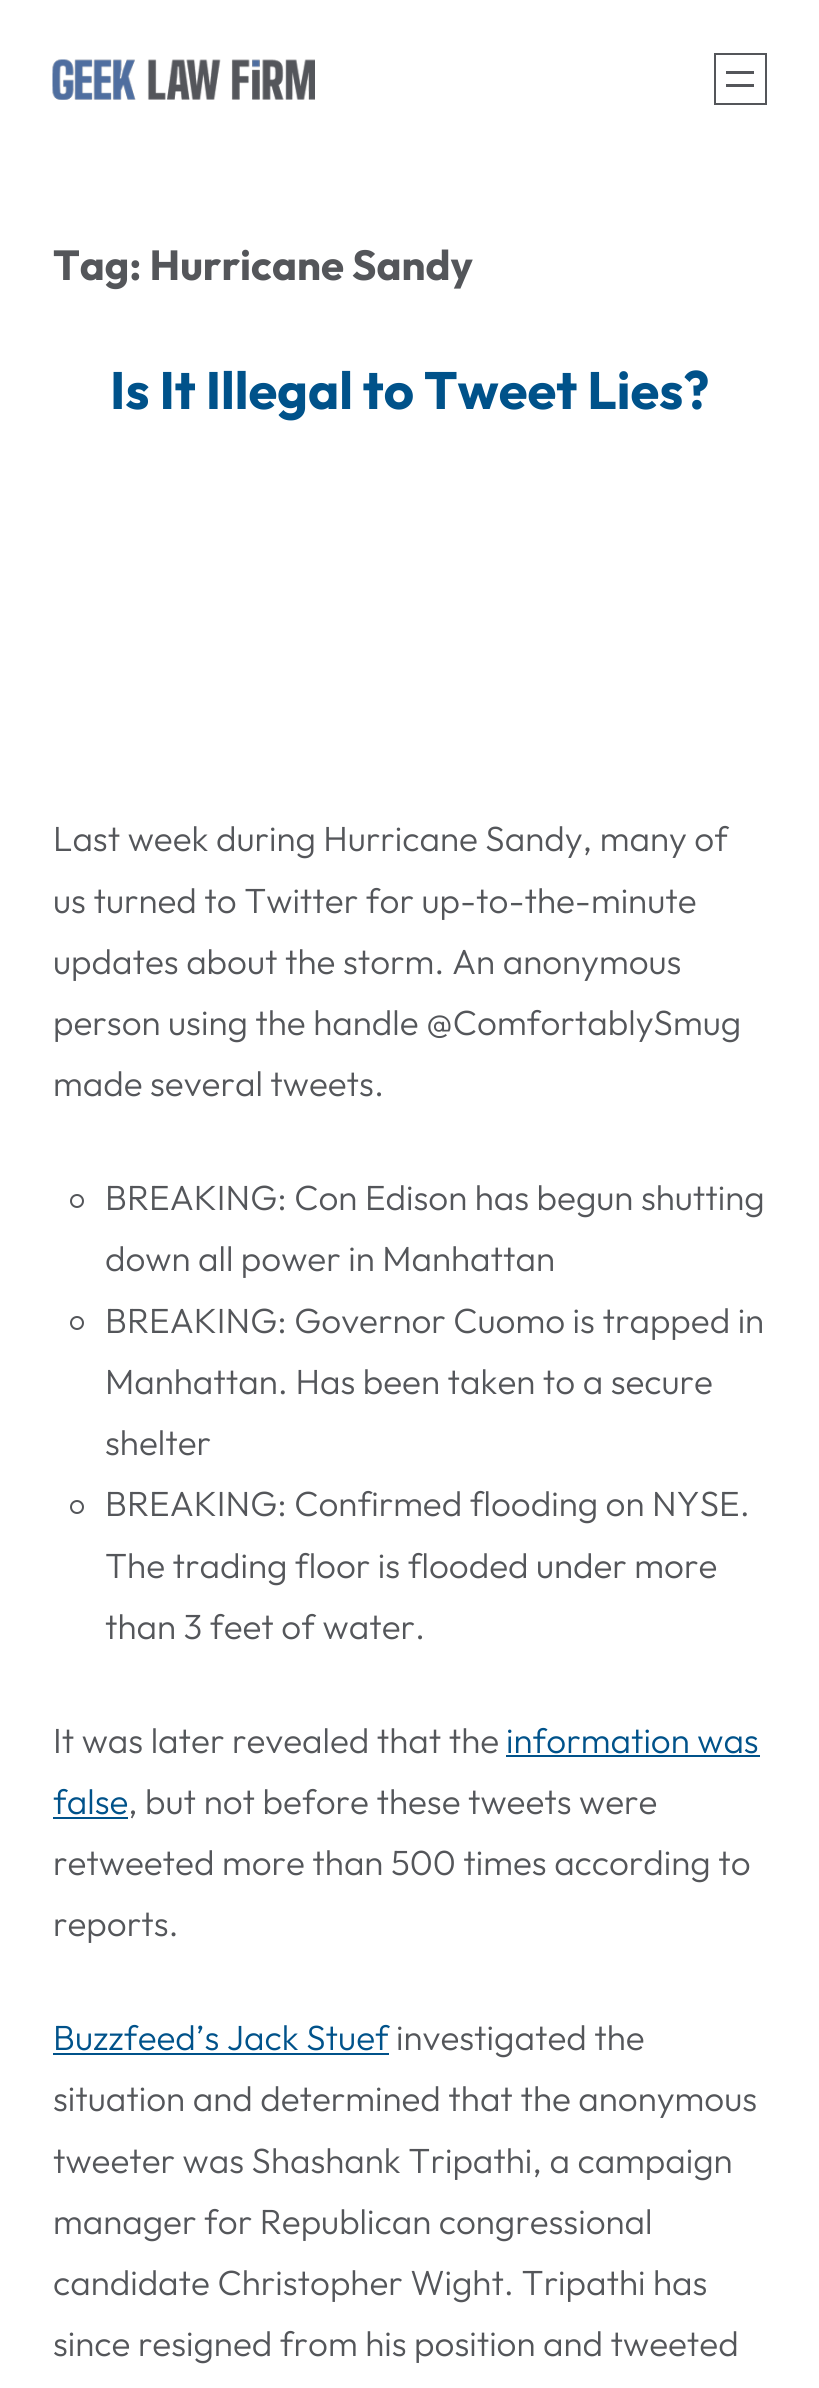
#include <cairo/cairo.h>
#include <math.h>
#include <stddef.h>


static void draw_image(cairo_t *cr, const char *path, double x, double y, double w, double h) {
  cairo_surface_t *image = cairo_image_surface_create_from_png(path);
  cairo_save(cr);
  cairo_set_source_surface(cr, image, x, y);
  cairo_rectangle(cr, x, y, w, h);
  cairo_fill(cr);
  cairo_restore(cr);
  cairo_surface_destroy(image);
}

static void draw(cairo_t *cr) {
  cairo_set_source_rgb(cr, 1, 1, 1);
  cairo_paint(cr);
  draw_image(cr, "images/1.png", 52, 59, 263, 41);
  cairo_rectangle(cr, 715, 54, 51, 50);
  cairo_set_source_rgb(cr, 84 / 255.0, 86 / 255.0, 90 / 255.0);
  cairo_stroke(cr);
  cairo_rectangle(cr, 726, 71, 28, 3);
  cairo_fill(cr);
  cairo_rectangle(cr, 726, 84, 28, 3);
  cairo_fill(cr);
  cairo_arc(cr, 77, 1201, 6, 0, 2 * M_PI);
  cairo_stroke(cr);
  cairo_arc(cr, 77, 1323, 6, 0, 2 * M_PI);
  cairo_stroke(cr);
  cairo_arc(cr, 77, 1507, 6, 0, 2 * M_PI);
  cairo_stroke(cr);
  cairo_set_source_rgb(cr, 0, 82 / 255.0, 138 / 255.0);
  cairo_rectangle(cr, 506, 1755, 254, 2);
  cairo_fill(cr);
  cairo_rectangle(cr, 53, 1817, 75, 2);
  cairo_fill(cr);
  cairo_rectangle(cr, 53, 2053, 336, 2);
  cairo_fill(cr);
  cairo_select_font_face(cr, "Outfit", CAIRO_FONT_SLANT_NORMAL, CAIRO_FONT_WEIGHT_BOLD);
  cairo_set_font_size(cr, 42);
  cairo_set_source_rgb(cr, 84 / 255.0, 86 / 255.0, 90 / 255.0);
  cairo_move_to(cr, 53, 280);
  cairo_show_text(cr, "Tag: Hurricane Sandy");
  cairo_set_font_size(cr, 52.5);
  cairo_set_source_rgb(cr, 0, 82 / 255.0, 138 / 255.0);
  cairo_move_to(cr, 110, 409);
  cairo_show_text(cr, "Is It Illegal to Tweet Lies?");
  cairo_select_font_face(cr, "Outfit Light", CAIRO_FONT_SLANT_NORMAL, CAIRO_FONT_WEIGHT_NORMAL);
  cairo_set_font_size(cr, 35);
  cairo_set_source_rgb(cr, 84 / 255.0, 86 / 255.0, 90 / 255.0);
  cairo_move_to(cr, 53, 851);
  cairo_show_text(cr, "Last week during Hurricane Sandy, many of");
  cairo_move_to(cr, 53, 913);
  cairo_show_text(cr, "us turned to Twitter for up-to-the-minute");
  cairo_move_to(cr, 53, 974);
  cairo_show_text(cr, "updates about the storm. An anonymous");
  cairo_move_to(cr, 53, 1035);
  cairo_show_text(cr, "person using the handle @ComfortablySmug");
  cairo_move_to(cr, 53, 1096);
  cairo_show_text(cr, "made several tweets.");
  cairo_move_to(cr, 105, 1210);
  cairo_show_text(cr, "BREAKING: Con Edison has begun shutting");
  cairo_move_to(cr, 105, 1271);
  cairo_show_text(cr, "down all power in Manhattan");
  cairo_move_to(cr, 105, 1333);
  cairo_show_text(cr, "BREAKING: Governor Cuomo is trapped in");
  cairo_move_to(cr, 105, 1394);
  cairo_show_text(cr, "Manhattan. Has been taken to a secure");
  cairo_move_to(cr, 105, 1455);
  cairo_show_text(cr, "shelter");
  cairo_move_to(cr, 105, 1516);
  cairo_show_text(cr, "BREAKING: Confirmed flooding on NYSE.");
  cairo_move_to(cr, 105, 1578);
  cairo_show_text(cr, "The trading floor is flooded under more");
  cairo_move_to(cr, 105, 1639);
  cairo_show_text(cr, "than 3 feet of water.");
  cairo_move_to(cr, 53, 1753);
  cairo_show_text(cr, "It was later revealed that the");
  cairo_set_source_rgb(cr, 0, 82 / 255.0, 138 / 255.0);
  cairo_move_to(cr, 506, 1753);
  cairo_show_text(cr, "information was");
  cairo_move_to(cr, 53, 1814);
  cairo_show_text(cr, "false");
  cairo_set_source_rgb(cr, 84 / 255.0, 86 / 255.0, 90 / 255.0);
  cairo_move_to(cr, 128, 1814);
  cairo_show_text(cr, ", but not before these tweets were");
  cairo_move_to(cr, 53, 1875);
  cairo_show_text(cr, "retweeted more than 500 times according to");
  cairo_move_to(cr, 53, 1936);
  cairo_show_text(cr, "reports.");
  cairo_set_source_rgb(cr, 0, 82 / 255.0, 138 / 255.0);
  cairo_move_to(cr, 53, 2050);
  cairo_show_text(cr, "Buzzfeed’s Jack Stuef");
  cairo_set_source_rgb(cr, 84 / 255.0, 86 / 255.0, 90 / 255.0);
  cairo_move_to(cr, 396, 2050);
  cairo_show_text(cr, "investigated the");
  cairo_move_to(cr, 53, 2111);
  cairo_show_text(cr, "situation and determined that the anonymous");
  cairo_move_to(cr, 53, 2173);
  cairo_show_text(cr, "tweeter was Shashank Tripathi, a campaign");
  cairo_move_to(cr, 53, 2234);
  cairo_show_text(cr, "manager for Republican congressional");
  cairo_move_to(cr, 53, 2295);
  cairo_show_text(cr, "candidate Christopher Wight. Tripathi has");
  cairo_move_to(cr, 53, 2356);
  cairo_show_text(cr, "since resigned from his position and tweeted");
}

int main(void) {
  cairo_surface_t *surface = cairo_image_surface_create(CAIRO_FORMAT_RGB24, 819, 2388);
  cairo_t *cr = cairo_create(surface);
  cairo_font_options_t *options = cairo_font_options_create();
  cairo_font_options_set_hint_metrics(options, CAIRO_HINT_METRICS_OFF);
  cairo_font_options_set_hint_style(options, CAIRO_HINT_STYLE_NONE);
  cairo_set_font_options(cr, options);
  cairo_set_miter_limit(cr, 4);
  draw(cr);
  cairo_surface_write_to_png(surface, "out.png");
  cairo_font_options_destroy(options);
  cairo_destroy(cr);
  cairo_surface_destroy(surface);
  return 0;
}
